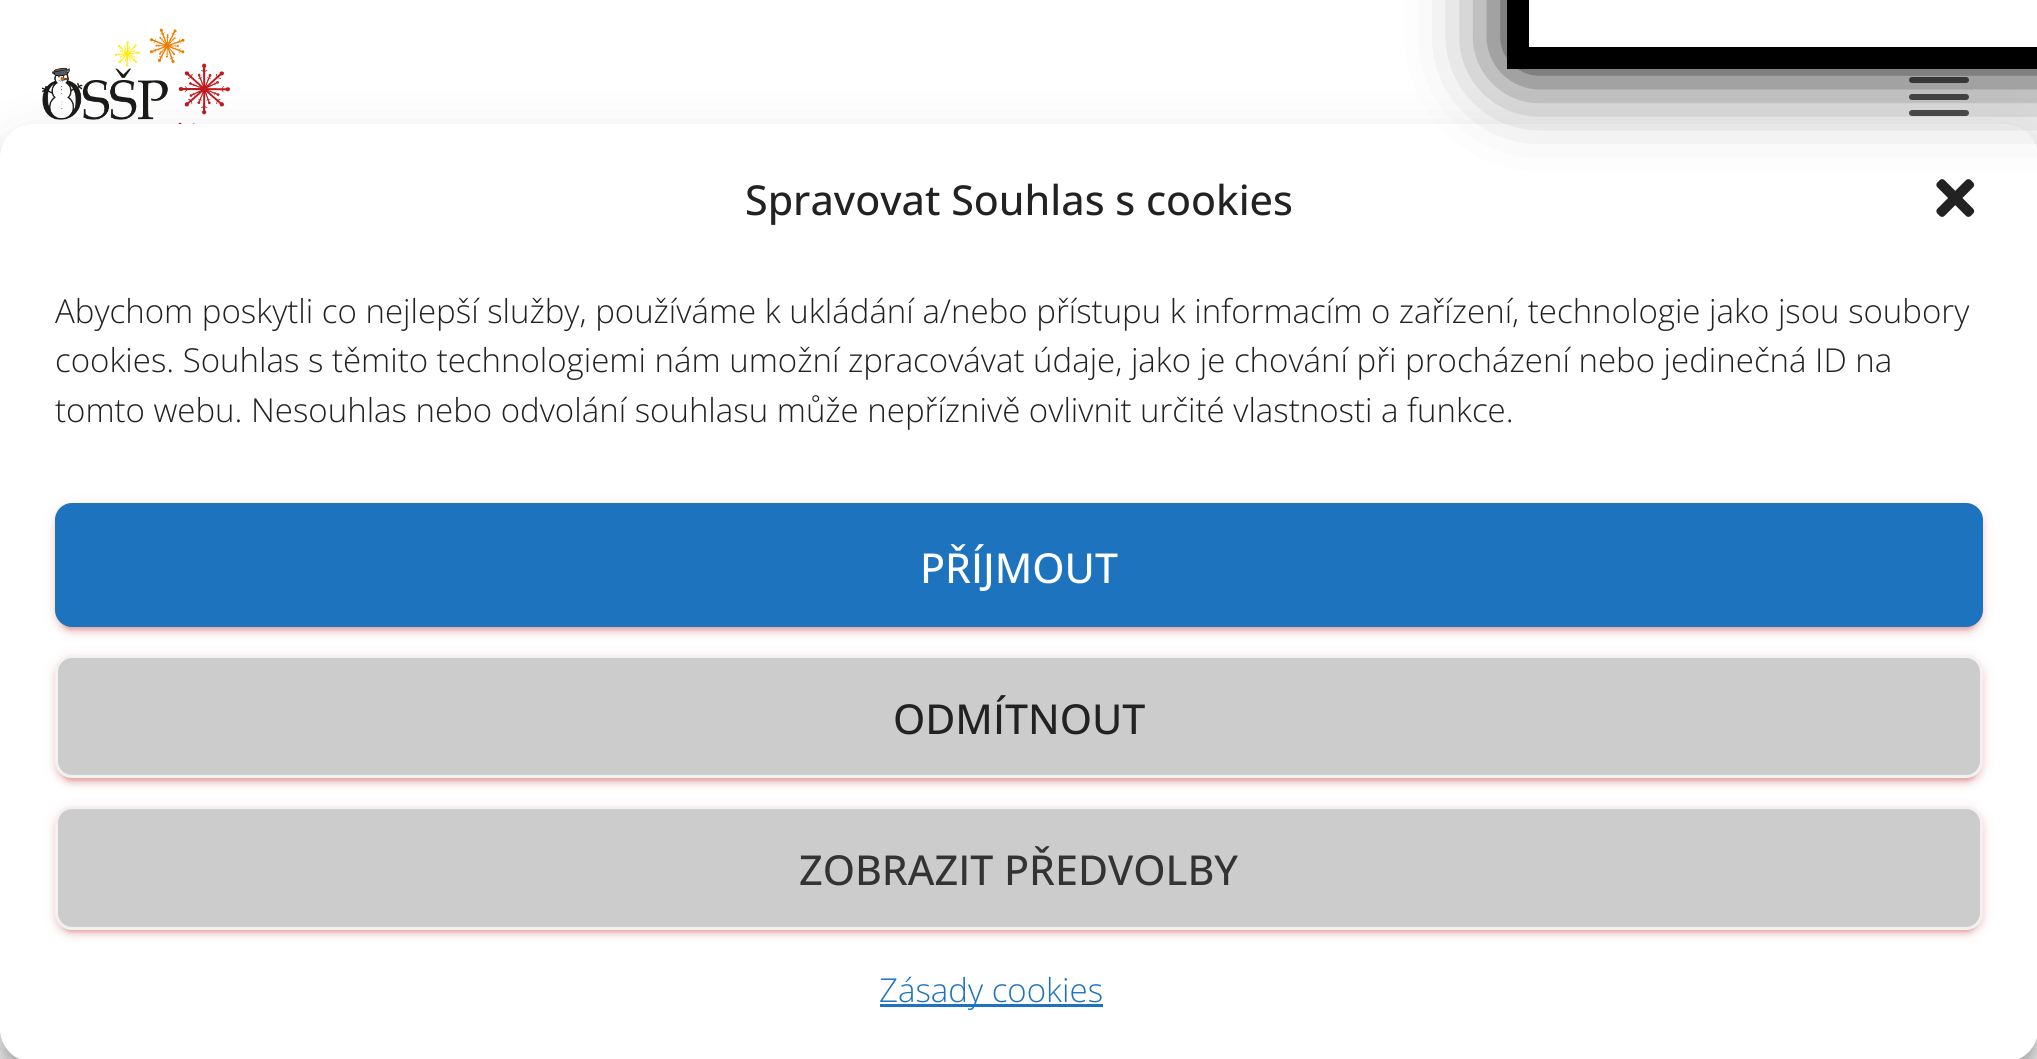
#include <cairo/cairo.h>
#include <math.h>
#include <stddef.h>


static void rounded_rect(cairo_t *cr, double x, double y, double w, double h, double r) {
  cairo_new_sub_path(cr);
  cairo_arc(cr, x + w - r, y + h - r, r, 0, M_PI / 2);
  cairo_arc(cr, x + r, y + h - r, r, M_PI / 2, M_PI);
  cairo_arc(cr, x + r, y + r, r, M_PI, 1.5 * M_PI);
  cairo_arc(cr, x + w - r, y + r, r, 1.5 * M_PI, 2 * M_PI);
  cairo_close_path(cr);
}

static void draw_shadow(cairo_t *cr, double x, double y, double w, double h, double r, double blur, double alpha) {
  cairo_push_group_with_content(cr, CAIRO_CONTENT_ALPHA);
  cairo_set_operator(cr, CAIRO_OPERATOR_SOURCE);
  for (int i = 15; i >= -15 && fmin(w, h) + blur * i / 3 > 0; i -= 2) {
    double e = blur * i / 6;
    cairo_set_source_rgba(cr, 0, 0, 0, alpha * erfc((i - 1) / 8.5) / 2);
    rounded_rect(cr, x - e, y - e, w + 2 * e, h + 2 * e, fmax(0, fmin(r + e + blur * .6, fmin(w, h) / 2 + e)));
    cairo_fill(cr);
  }
  cairo_pattern_t *soft = cairo_pop_group(cr);
  cairo_mask(cr, soft);
  cairo_pattern_destroy(soft);
}

static void draw_image(cairo_t *cr, const char *path, double x, double y, double w, double h) {
  cairo_surface_t *image = cairo_image_surface_create_from_png(path);
  cairo_save(cr);
  cairo_set_source_surface(cr, image, x, y);
  cairo_rectangle(cr, x, y, w, h);
  cairo_fill(cr);
  cairo_restore(cr);
  cairo_surface_destroy(image);
}

static void draw(cairo_t *cr) {
  cairo_set_source_rgb(cr, 1, 1, 1);
  cairo_paint(cr);
  cairo_set_source_rgb(cr, 85 / 255.0, 85 / 255.0, 85 / 255.0);
  rounded_rect(cr, 1909, 77, 60, 6, 3);
  cairo_fill(cr);
  rounded_rect(cr, 1909, 94, 60, 6, 3);
  cairo_fill(cr);
  rounded_rect(cr, 1909, 110, 60, 6, 3);
  cairo_fill(cr);
  draw_image(cr, "images/1.png", 41, 28, 189, 96);
  cairo_set_source_rgb(cr, 0, 0, 0);
  draw_shadow(cr, 0, 140, 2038, 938, 33, 8, 0.23);
  draw_shadow(cr, 0, 151, 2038, 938, 33, 27.5, 0.19);
  cairo_set_source_rgb(cr, 1, 1, 1);
  rounded_rect(cr, 0, 124, 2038, 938, 33);
  cairo_fill(cr);
  draw_image(cr, "images/2.png", 1936, 179, 39, 38);
  cairo_set_source_rgb(cr, 2 / 255.0, 2 / 255.0, 2 / 255.0);
  draw_shadow(cr, 1507, -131, 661, 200, 8, 41, 1);
  cairo_set_source_rgb(cr, 1, 1, 1);
  cairo_rectangle(cr, 1529, 0, 508, 47);
  cairo_fill(cr);
  cairo_new_path(cr);
  cairo_move_to(cr, 1518, -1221);
  cairo_line_to(cr, 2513.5, -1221);
  cairo_line_to(cr, 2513.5, 58);
  cairo_line_to(cr, 1518, 58);
  cairo_close_path(cr);
  cairo_set_source_rgb(cr, 0, 0, 0);
  cairo_set_line_width(cr, 22);
  cairo_stroke(cr);
  cairo_set_source_rgb(cr, 183 / 255.0, 23 / 255.0, 23 / 255.0);
  draw_shadow(cr, 55, 506, 1928, 124, 17, 7, 0.12);
  draw_shadow(cr, 61, 517, 1916, 113, 11, 1.5, 0.2);
  draw_shadow(cr, 55, 509, 1928, 124, 17, 3, 0.14);
  cairo_set_source_rgb(cr, 30 / 255.0, 115 / 255.0, 190 / 255.0);
  rounded_rect(cr, 56.5, 504.5, 1925, 121, 15.5);
  cairo_fill_preserve(cr);
  cairo_set_line_width(cr, 3);
  cairo_stroke(cr);
  cairo_set_source_rgb(cr, 183 / 255.0, 23 / 255.0, 23 / 255.0);
  draw_shadow(cr, 55, 657, 1928, 124, 17, 7, 0.12);
  draw_shadow(cr, 61, 668, 1916, 113, 11, 1.5, 0.2);
  draw_shadow(cr, 55, 660, 1928, 124, 17, 3, 0.14);
  cairo_set_source_rgb(cr, 204 / 255.0, 204 / 255.0, 204 / 255.0);
  rounded_rect(cr, 56.5, 656.5, 1925, 120, 15.5);
  cairo_fill_preserve(cr);
  cairo_set_source_rgb(cr, 242 / 255.0, 242 / 255.0, 242 / 255.0);
  cairo_stroke(cr);
  cairo_set_source_rgb(cr, 183 / 255.0, 23 / 255.0, 23 / 255.0);
  draw_shadow(cr, 55, 809, 1928, 123, 17, 7, 0.12);
  draw_shadow(cr, 61, 820, 1916, 112, 11, 1.5, 0.2);
  draw_shadow(cr, 55, 811, 1928, 124, 17, 3, 0.14);
  cairo_set_source_rgb(cr, 204 / 255.0, 204 / 255.0, 204 / 255.0);
  rounded_rect(cr, 56.5, 807.5, 1925, 121, 15.5);
  cairo_fill_preserve(cr);
  cairo_set_source_rgb(cr, 242 / 255.0, 242 / 255.0, 242 / 255.0);
  cairo_stroke(cr);
  cairo_set_source_rgb(cr, 30 / 255.0, 115 / 255.0, 190 / 255.0);
  cairo_rectangle(cr, 880, 1004, 223, 3);
  cairo_fill(cr);
  cairo_select_font_face(cr, "Open Sans Medium", CAIRO_FONT_SLANT_NORMAL, CAIRO_FONT_WEIGHT_NORMAL);
  cairo_set_font_size(cr, 41.25);
  cairo_set_source_rgb(cr, 34 / 255.0, 34 / 255.0, 34 / 255.0);
  cairo_move_to(cr, 745, 215);
  cairo_show_text(cr, "Spravovat Souhlas s cookies");
  cairo_select_font_face(cr, "Open Sans Light", CAIRO_FONT_SLANT_NORMAL, CAIRO_FONT_WEIGHT_NORMAL);
  cairo_set_font_size(cr, 33);
  cairo_move_to(cr, 55, 323);
  cairo_show_text(cr, "Abychom poskytli co nejlepší služby, používáme k ukládání a/nebo přístupu k informacím o zařízení, technologie jako jsou soubory");
  cairo_move_to(cr, 55, 372);
  cairo_show_text(cr, "cookies. Souhlas s těmito technologiemi nám umožní zpracovávat údaje, jako je chování při procházení nebo jedinečná ID na");
  cairo_move_to(cr, 55, 422);
  cairo_show_text(cr, "tomto webu. Nesouhlas nebo odvolání souhlasu může nepříznivě ovlivnit určité vlastnosti a funkce.");
  cairo_select_font_face(cr, "Open Sans Medium", CAIRO_FONT_SLANT_NORMAL, CAIRO_FONT_WEIGHT_NORMAL);
  cairo_set_font_size(cr, 41.25);
  cairo_set_source_rgb(cr, 1, 1, 1);
  cairo_move_to(cr, 920, 583);
  cairo_show_text(cr, "PŘÍJMOUT");
  cairo_set_source_rgb(cr, 34 / 255.0, 34 / 255.0, 34 / 255.0);
  cairo_move_to(cr, 893, 734);
  cairo_show_text(cr, "ODMÍTNOUT");
  cairo_set_source_rgb(cr, 51 / 255.0, 51 / 255.0, 51 / 255.0);
  cairo_move_to(cr, 799, 885);
  cairo_show_text(cr, "ZOBRAZIT PŘEDVOLBY");
  cairo_select_font_face(cr, "Open Sans Light", CAIRO_FONT_SLANT_NORMAL, CAIRO_FONT_WEIGHT_NORMAL);
  cairo_set_font_size(cr, 33);
  cairo_set_source_rgb(cr, 30 / 255.0, 115 / 255.0, 190 / 255.0);
  cairo_move_to(cr, 879, 1002);
  cairo_show_text(cr, "Zásady cookies");
}

int main(void) {
  cairo_surface_t *surface = cairo_image_surface_create(CAIRO_FORMAT_RGB24, 2037, 1059);
  cairo_t *cr = cairo_create(surface);
  cairo_font_options_t *options = cairo_font_options_create();
  cairo_font_options_set_hint_metrics(options, CAIRO_HINT_METRICS_OFF);
  cairo_font_options_set_hint_style(options, CAIRO_HINT_STYLE_NONE);
  cairo_set_font_options(cr, options);
  cairo_set_miter_limit(cr, 4);
  draw(cr);
  cairo_surface_write_to_png(surface, "out.png");
  cairo_font_options_destroy(options);
  cairo_destroy(cr);
  cairo_surface_destroy(surface);
  return 0;
}
